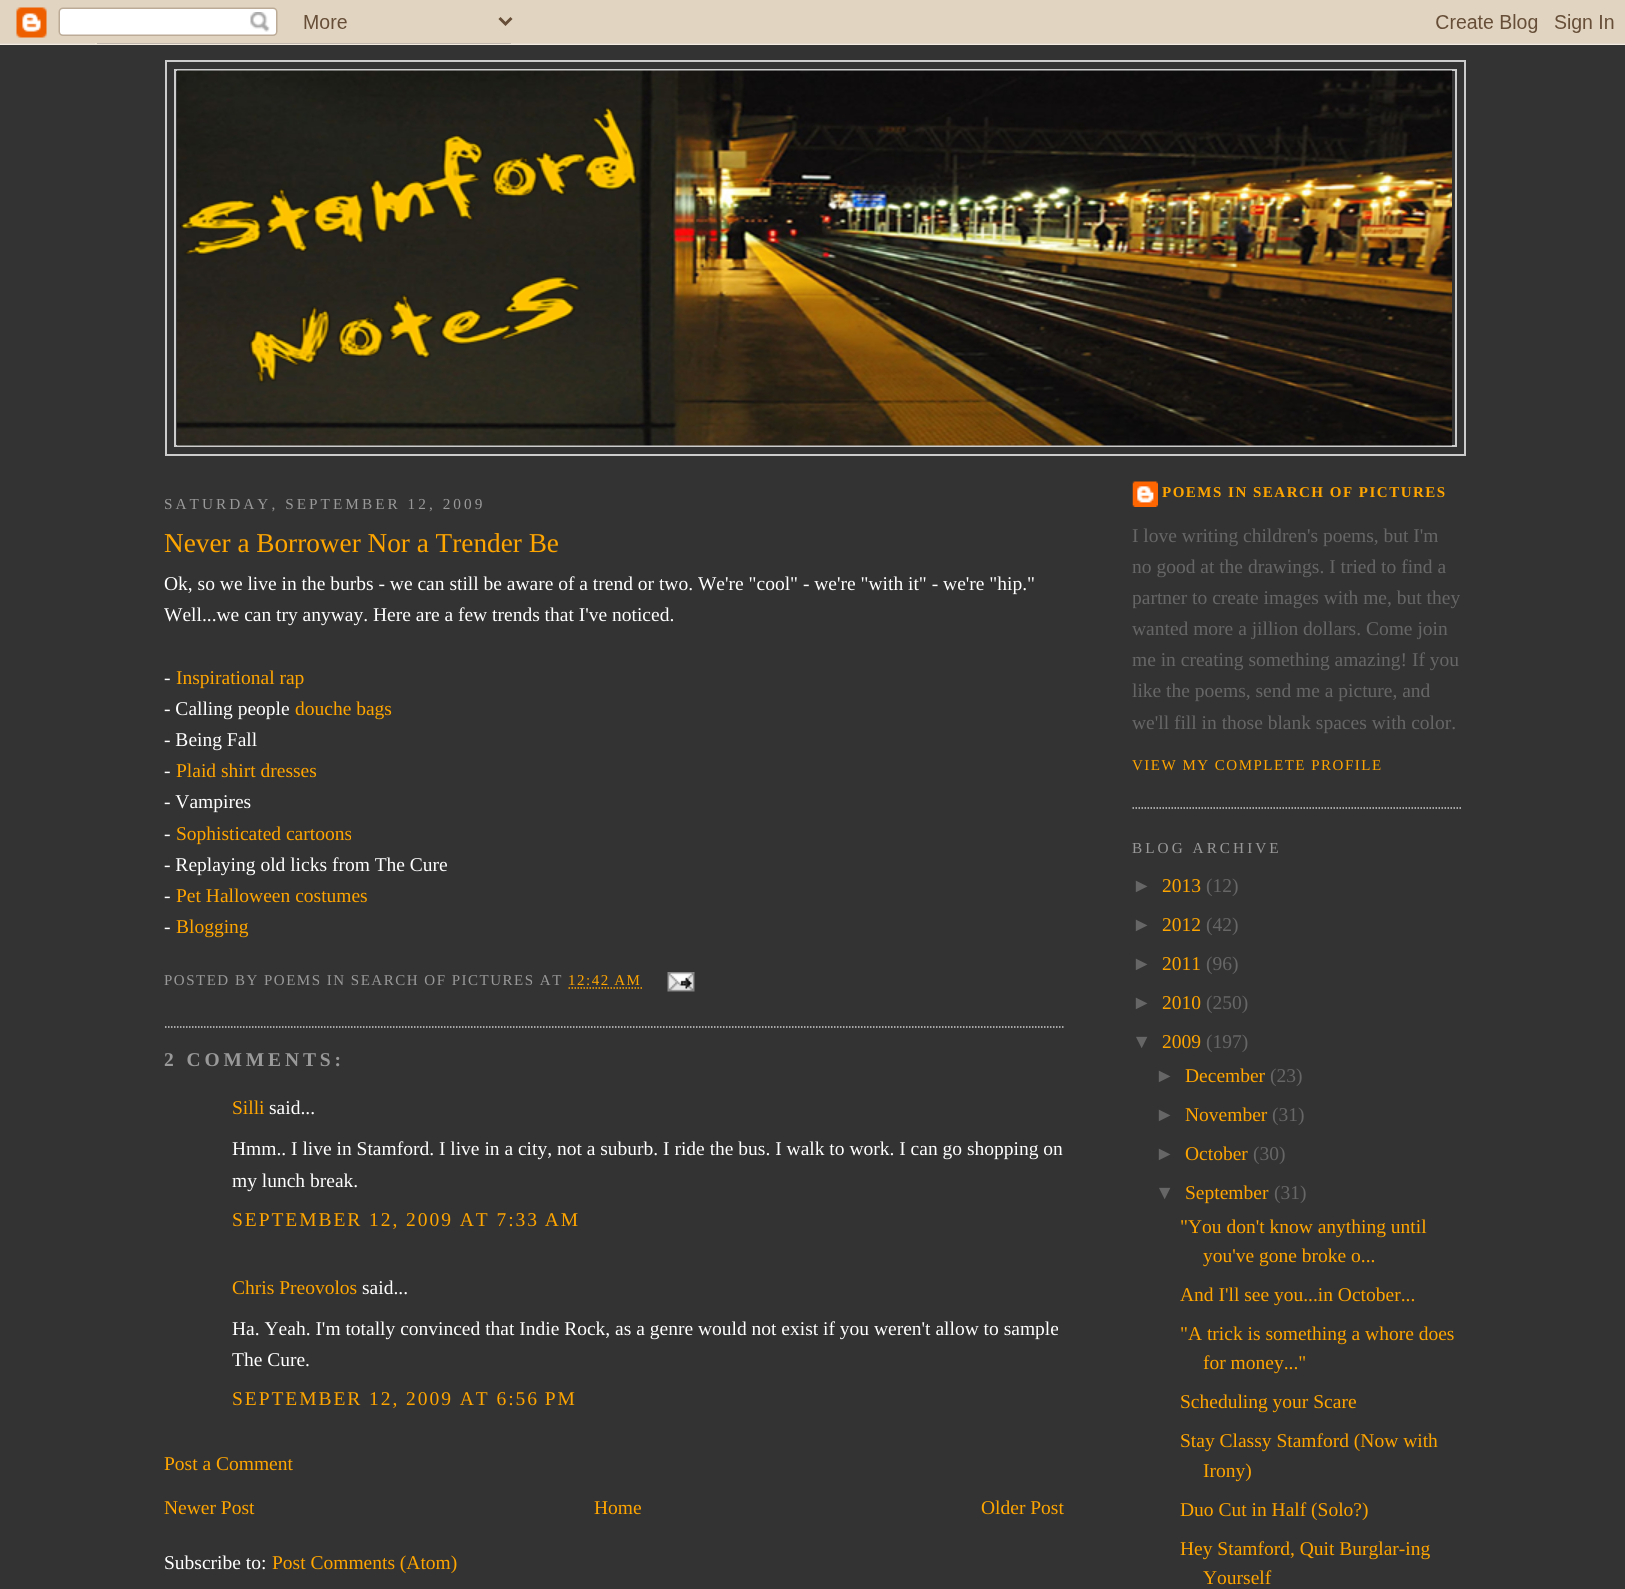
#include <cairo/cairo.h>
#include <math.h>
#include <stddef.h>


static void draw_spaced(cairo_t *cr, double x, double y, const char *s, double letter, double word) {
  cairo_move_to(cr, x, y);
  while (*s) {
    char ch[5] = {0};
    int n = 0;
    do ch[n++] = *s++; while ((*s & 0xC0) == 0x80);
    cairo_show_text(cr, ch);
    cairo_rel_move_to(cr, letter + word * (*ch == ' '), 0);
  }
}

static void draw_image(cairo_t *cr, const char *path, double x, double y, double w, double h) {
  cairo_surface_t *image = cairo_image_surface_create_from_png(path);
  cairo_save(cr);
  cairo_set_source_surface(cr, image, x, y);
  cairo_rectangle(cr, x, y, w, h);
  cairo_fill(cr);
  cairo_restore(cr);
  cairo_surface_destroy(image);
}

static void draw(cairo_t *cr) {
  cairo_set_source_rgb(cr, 51 / 255.0, 51 / 255.0, 51 / 255.0);
  cairo_paint(cr);
  draw_image(cr, "images/1.png", 0, 0, 1625, 45);
  cairo_rectangle(cr, 166, 61, 1299, 394);
  cairo_set_source_rgb(cr, 204 / 255.0, 204 / 255.0, 204 / 255.0);
  cairo_stroke(cr);
  cairo_rectangle(cr, 175, 70, 1281, 376);
  cairo_stroke(cr);
  draw_image(cr, "images/2.png", 177, 70, 1275, 376);
  cairo_new_path(cr);
  cairo_move_to(cr, 165, 1027);
  cairo_line_to(cr, 1065, 1027);
  cairo_set_line_width(cr, 1.5);
  cairo_set_dash(cr, (double[]){1.5, 1.5}, 2, 0);
  cairo_stroke(cr);
  cairo_new_path(cr);
  cairo_move_to(cr, 568.5, 988);
  cairo_line_to(cr, 642, 988);
  cairo_set_source_rgb(cr, 1, 165 / 255.0, 0);
  cairo_stroke(cr);
  draw_image(cr, "images/3.png", 667, 972, 28, 20);
  cairo_new_path(cr);
  cairo_move_to(cr, 1132.5, 808);
  cairo_line_to(cr, 1462.5, 808);
  cairo_set_source_rgb(cr, 204 / 255.0, 204 / 255.0, 204 / 255.0);
  cairo_stroke(cr);
  draw_image(cr, "images/4.png", 1132, 481, 26, 26);
  cairo_select_font_face(cr, "Liberation Serif", CAIRO_FONT_SLANT_NORMAL, CAIRO_FONT_WEIGHT_NORMAL);
  cairo_set_font_size(cr, 15.25);
  cairo_set_source_rgb(cr, 153 / 255.0, 153 / 255.0, 153 / 255.0);
  draw_spaced(cr, 164, 509, "SATURDAY, SEPTEMBER 12, 2009", 3.05, 0);
  cairo_set_font_size(cr, 27.25);
  cairo_set_source_rgb(cr, 1, 165 / 255.0, 0);
  cairo_move_to(cr, 164, 552);
  cairo_show_text(cr, "Never a Borrower Nor a Trender Be");
  cairo_set_font_size(cr, 19.5);
  cairo_set_source_rgb(cr, 1, 1, 1);
  cairo_move_to(cr, 164, 590);
  cairo_show_text(cr, "Ok, so we live in the burbs - we can still be aware of a trend or two. We're \"cool\" - we're \"with it\" - we're \"hip.\"");
  cairo_move_to(cr, 164, 621);
  cairo_show_text(cr, "Well...we can try anyway. Here are a few trends that I've noticed.");
  cairo_move_to(cr, 164, 684);
  cairo_show_text(cr, "-");
  cairo_set_source_rgb(cr, 1, 165 / 255.0, 0);
  cairo_move_to(cr, 176, 684);
  cairo_show_text(cr, "Inspirational rap");
  cairo_set_source_rgb(cr, 1, 1, 1);
  cairo_move_to(cr, 164, 715);
  cairo_show_text(cr, "- Calling people");
  cairo_set_source_rgb(cr, 1, 165 / 255.0, 0);
  cairo_move_to(cr, 295, 715);
  cairo_show_text(cr, "douche bags");
  cairo_set_source_rgb(cr, 1, 1, 1);
  cairo_move_to(cr, 164, 746);
  cairo_show_text(cr, "- Being Fall");
  cairo_move_to(cr, 164, 777);
  cairo_show_text(cr, "-");
  cairo_set_source_rgb(cr, 1, 165 / 255.0, 0);
  cairo_move_to(cr, 176, 777);
  cairo_show_text(cr, "Plaid shirt dresses");
  cairo_set_source_rgb(cr, 1, 1, 1);
  cairo_move_to(cr, 164, 808);
  cairo_show_text(cr, "- Vampires");
  cairo_move_to(cr, 164, 840);
  cairo_show_text(cr, "-");
  cairo_set_source_rgb(cr, 1, 165 / 255.0, 0);
  cairo_move_to(cr, 176, 840);
  cairo_show_text(cr, "Sophisticated cartoons");
  cairo_set_source_rgb(cr, 1, 1, 1);
  cairo_move_to(cr, 164, 871);
  cairo_show_text(cr, "- Replaying old licks from The Cure");
  cairo_move_to(cr, 164, 902);
  cairo_show_text(cr, "-");
  cairo_set_source_rgb(cr, 1, 165 / 255.0, 0);
  cairo_move_to(cr, 176, 902);
  cairo_show_text(cr, "Pet Halloween costumes");
  cairo_set_source_rgb(cr, 1, 1, 1);
  cairo_move_to(cr, 164, 933);
  cairo_show_text(cr, "-");
  cairo_set_source_rgb(cr, 1, 165 / 255.0, 0);
  cairo_move_to(cr, 176, 933);
  cairo_show_text(cr, "Blogging");
  cairo_set_font_size(cr, 15);
  cairo_set_source_rgb(cr, 153 / 255.0, 153 / 255.0, 153 / 255.0);
  draw_spaced(cr, 164, 985, "POSTED BY POEMS IN SEARCH OF PICTURES AT", 1.5, 0);
  cairo_set_source_rgb(cr, 1, 165 / 255.0, 0);
  draw_spaced(cr, 568, 985, "12:42 AM", 1.5, 0);
  cairo_select_font_face(cr, "Liberation Serif", CAIRO_FONT_SLANT_NORMAL, CAIRO_FONT_WEIGHT_BOLD);
  cairo_set_font_size(cr, 19.5);
  cairo_set_source_rgb(cr, 153 / 255.0, 153 / 255.0, 153 / 255.0);
  draw_spaced(cr, 164, 1066, "2 COMMENTS:", 3.9, 0);
  cairo_select_font_face(cr, "Liberation Serif", CAIRO_FONT_SLANT_NORMAL, CAIRO_FONT_WEIGHT_NORMAL);
  cairo_set_source_rgb(cr, 1, 165 / 255.0, 0);
  cairo_move_to(cr, 232, 1114);
  cairo_show_text(cr, "Silli");
  cairo_set_source_rgb(cr, 1, 1, 1);
  cairo_move_to(cr, 269, 1114);
  cairo_show_text(cr, "said...");
  cairo_move_to(cr, 232, 1155);
  cairo_show_text(cr, "Hmm.. I live in Stamford. I live in a city, not a suburb. I ride the bus. I walk to work. I can go shopping on");
  cairo_move_to(cr, 232, 1187);
  cairo_show_text(cr, "my lunch break.");
  cairo_set_source_rgb(cr, 1, 165 / 255.0, 0);
  draw_spaced(cr, 232, 1226, "SEPTEMBER 12, 2009 AT 7:33 AM", 1.95, 0);
  cairo_move_to(cr, 232, 1294);
  cairo_show_text(cr, "Chris Preovolos");
  cairo_set_source_rgb(cr, 1, 1, 1);
  cairo_move_to(cr, 362, 1294);
  cairo_show_text(cr, "said...");
  cairo_move_to(cr, 232, 1335);
  cairo_show_text(cr, "Ha. Yeah. I'm totally convinced that Indie Rock, as a genre would not exist if you weren't allow to sample");
  cairo_move_to(cr, 232, 1366);
  cairo_show_text(cr, "The Cure.");
  cairo_set_source_rgb(cr, 1, 165 / 255.0, 0);
  draw_spaced(cr, 232, 1405, "SEPTEMBER 12, 2009 AT 6:56 PM", 1.95, 0);
  cairo_move_to(cr, 164, 1470);
  cairo_show_text(cr, "Post a Comment");
  cairo_move_to(cr, 164, 1514);
  cairo_show_text(cr, "Newer Post");
  cairo_move_to(cr, 594, 1514);
  cairo_show_text(cr, "Home");
  cairo_move_to(cr, 981, 1514);
  cairo_show_text(cr, "Older Post");
  cairo_set_source_rgb(cr, 1, 1, 1);
  cairo_move_to(cr, 164, 1569);
  cairo_show_text(cr, "Subscribe to:");
  cairo_set_source_rgb(cr, 1, 165 / 255.0, 0);
  cairo_move_to(cr, 272, 1569);
  cairo_show_text(cr, "Post Comments (Atom)");
  cairo_select_font_face(cr, "Liberation Serif", CAIRO_FONT_SLANT_NORMAL, CAIRO_FONT_WEIGHT_BOLD);
  cairo_set_font_size(cr, 15);
  draw_spaced(cr, 1162, 497, "POEMS IN SEARCH OF PICTURES", 1.5, 0);
  cairo_select_font_face(cr, "Liberation Serif", CAIRO_FONT_SLANT_NORMAL, CAIRO_FONT_WEIGHT_NORMAL);
  cairo_set_font_size(cr, 19.5);
  cairo_set_source_rgb(cr, 102 / 255.0, 102 / 255.0, 102 / 255.0);
  cairo_move_to(cr, 1132, 542);
  cairo_show_text(cr, "I love writing children's poems, but I'm");
  cairo_move_to(cr, 1132, 573);
  cairo_show_text(cr, "no good at the drawings. I tried to find a");
  cairo_save(cr);
  cairo_rectangle(cr, 1133, 471, 330, 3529);
  cairo_clip(cr);
  cairo_move_to(cr, 1132, 604);
  cairo_show_text(cr, "partner to create images with me, but they");
  cairo_restore(cr);
  cairo_move_to(cr, 1132, 635);
  cairo_show_text(cr, "wanted more a jillion dollars. Come join");
  cairo_move_to(cr, 1132, 666);
  cairo_show_text(cr, "me in creating something amazing! If you");
  cairo_move_to(cr, 1132, 697);
  cairo_show_text(cr, "like the poems, send me a picture, and");
  cairo_move_to(cr, 1132, 729);
  cairo_show_text(cr, "we'll fill in those blank spaces with color.");
  cairo_set_font_size(cr, 15);
  cairo_set_source_rgb(cr, 1, 165 / 255.0, 0);
  draw_spaced(cr, 1132, 770, "VIEW MY COMPLETE PROFILE", 1.5, 0);
  cairo_set_font_size(cr, 15.25);
  cairo_set_source_rgb(cr, 153 / 255.0, 153 / 255.0, 153 / 255.0);
  draw_spaced(cr, 1132, 853, "BLOG ARCHIVE", 3.05, 0);
  cairo_select_font_face(cr, "Liberation Sans", CAIRO_FONT_SLANT_NORMAL, CAIRO_FONT_WEIGHT_NORMAL);
  cairo_set_font_size(cr, 19.5);
  cairo_set_source_rgb(cr, 102 / 255.0, 102 / 255.0, 102 / 255.0);
  cairo_move_to(cr, 1132, 892);
  cairo_show_text(cr, "►");
  cairo_select_font_face(cr, "Liberation Serif", CAIRO_FONT_SLANT_NORMAL, CAIRO_FONT_WEIGHT_NORMAL);
  cairo_set_source_rgb(cr, 1, 165 / 255.0, 0);
  cairo_move_to(cr, 1162, 892);
  cairo_show_text(cr, "2013");
  cairo_set_source_rgb(cr, 102 / 255.0, 102 / 255.0, 102 / 255.0);
  cairo_move_to(cr, 1206, 892);
  cairo_show_text(cr, "(12)");
  cairo_select_font_face(cr, "Liberation Sans", CAIRO_FONT_SLANT_NORMAL, CAIRO_FONT_WEIGHT_NORMAL);
  cairo_move_to(cr, 1132, 931);
  cairo_show_text(cr, "►");
  cairo_select_font_face(cr, "Liberation Serif", CAIRO_FONT_SLANT_NORMAL, CAIRO_FONT_WEIGHT_NORMAL);
  cairo_set_source_rgb(cr, 1, 165 / 255.0, 0);
  cairo_move_to(cr, 1162, 931);
  cairo_show_text(cr, "2012");
  cairo_set_source_rgb(cr, 102 / 255.0, 102 / 255.0, 102 / 255.0);
  cairo_move_to(cr, 1206, 931);
  cairo_show_text(cr, "(42)");
  cairo_select_font_face(cr, "Liberation Sans", CAIRO_FONT_SLANT_NORMAL, CAIRO_FONT_WEIGHT_NORMAL);
  cairo_move_to(cr, 1132, 970);
  cairo_show_text(cr, "►");
  cairo_select_font_face(cr, "Liberation Serif", CAIRO_FONT_SLANT_NORMAL, CAIRO_FONT_WEIGHT_NORMAL);
  cairo_set_source_rgb(cr, 1, 165 / 255.0, 0);
  cairo_move_to(cr, 1162, 970);
  cairo_show_text(cr, "2011");
  cairo_set_source_rgb(cr, 102 / 255.0, 102 / 255.0, 102 / 255.0);
  cairo_move_to(cr, 1206, 970);
  cairo_show_text(cr, "(96)");
  cairo_select_font_face(cr, "Liberation Sans", CAIRO_FONT_SLANT_NORMAL, CAIRO_FONT_WEIGHT_NORMAL);
  cairo_move_to(cr, 1132, 1009);
  cairo_show_text(cr, "►");
  cairo_select_font_face(cr, "Liberation Serif", CAIRO_FONT_SLANT_NORMAL, CAIRO_FONT_WEIGHT_NORMAL);
  cairo_set_source_rgb(cr, 1, 165 / 255.0, 0);
  cairo_move_to(cr, 1162, 1009);
  cairo_show_text(cr, "2010");
  cairo_set_source_rgb(cr, 102 / 255.0, 102 / 255.0, 102 / 255.0);
  cairo_move_to(cr, 1206, 1009);
  cairo_show_text(cr, "(250)");
  cairo_select_font_face(cr, "Liberation Sans", CAIRO_FONT_SLANT_NORMAL, CAIRO_FONT_WEIGHT_NORMAL);
  cairo_move_to(cr, 1132, 1048);
  cairo_show_text(cr, "▼");
  cairo_select_font_face(cr, "Liberation Serif", CAIRO_FONT_SLANT_NORMAL, CAIRO_FONT_WEIGHT_NORMAL);
  cairo_set_source_rgb(cr, 1, 165 / 255.0, 0);
  cairo_move_to(cr, 1162, 1048);
  cairo_show_text(cr, "2009");
  cairo_set_source_rgb(cr, 102 / 255.0, 102 / 255.0, 102 / 255.0);
  cairo_move_to(cr, 1206, 1048);
  cairo_show_text(cr, "(197)");
  cairo_select_font_face(cr, "Liberation Sans", CAIRO_FONT_SLANT_NORMAL, CAIRO_FONT_WEIGHT_NORMAL);
  cairo_move_to(cr, 1155, 1082);
  cairo_show_text(cr, "►");
  cairo_select_font_face(cr, "Liberation Serif", CAIRO_FONT_SLANT_NORMAL, CAIRO_FONT_WEIGHT_NORMAL);
  cairo_set_source_rgb(cr, 1, 165 / 255.0, 0);
  cairo_move_to(cr, 1185, 1082);
  cairo_show_text(cr, "December");
  cairo_set_source_rgb(cr, 102 / 255.0, 102 / 255.0, 102 / 255.0);
  cairo_move_to(cr, 1270, 1082);
  cairo_show_text(cr, "(23)");
  cairo_select_font_face(cr, "Liberation Sans", CAIRO_FONT_SLANT_NORMAL, CAIRO_FONT_WEIGHT_NORMAL);
  cairo_move_to(cr, 1155, 1121);
  cairo_show_text(cr, "►");
  cairo_select_font_face(cr, "Liberation Serif", CAIRO_FONT_SLANT_NORMAL, CAIRO_FONT_WEIGHT_NORMAL);
  cairo_set_source_rgb(cr, 1, 165 / 255.0, 0);
  cairo_move_to(cr, 1185, 1121);
  cairo_show_text(cr, "November");
  cairo_set_source_rgb(cr, 102 / 255.0, 102 / 255.0, 102 / 255.0);
  cairo_move_to(cr, 1272, 1121);
  cairo_show_text(cr, "(31)");
  cairo_select_font_face(cr, "Liberation Sans", CAIRO_FONT_SLANT_NORMAL, CAIRO_FONT_WEIGHT_NORMAL);
  cairo_move_to(cr, 1155, 1160);
  cairo_show_text(cr, "►");
  cairo_select_font_face(cr, "Liberation Serif", CAIRO_FONT_SLANT_NORMAL, CAIRO_FONT_WEIGHT_NORMAL);
  cairo_set_source_rgb(cr, 1, 165 / 255.0, 0);
  cairo_move_to(cr, 1185, 1160);
  cairo_show_text(cr, "October");
  cairo_set_source_rgb(cr, 102 / 255.0, 102 / 255.0, 102 / 255.0);
  cairo_move_to(cr, 1253, 1160);
  cairo_show_text(cr, "(30)");
  cairo_select_font_face(cr, "Liberation Sans", CAIRO_FONT_SLANT_NORMAL, CAIRO_FONT_WEIGHT_NORMAL);
  cairo_move_to(cr, 1155, 1199);
  cairo_show_text(cr, "▼");
  cairo_select_font_face(cr, "Liberation Serif", CAIRO_FONT_SLANT_NORMAL, CAIRO_FONT_WEIGHT_NORMAL);
  cairo_set_source_rgb(cr, 1, 165 / 255.0, 0);
  cairo_move_to(cr, 1185, 1199);
  cairo_show_text(cr, "September");
  cairo_set_source_rgb(cr, 102 / 255.0, 102 / 255.0, 102 / 255.0);
  cairo_move_to(cr, 1274, 1199);
  cairo_show_text(cr, "(31)");
  cairo_set_source_rgb(cr, 1, 165 / 255.0, 0);
  cairo_move_to(cr, 1180, 1233);
  cairo_show_text(cr, "\"You don't know anything until");
  cairo_move_to(cr, 1203, 1262);
  cairo_show_text(cr, "you've gone broke o...");
  cairo_move_to(cr, 1180, 1301);
  cairo_show_text(cr, "And I'll see you...in October...");
  cairo_move_to(cr, 1180, 1340);
  cairo_show_text(cr, "\"A trick is something a whore does");
  cairo_move_to(cr, 1203, 1369);
  cairo_show_text(cr, "for money...\"");
  cairo_move_to(cr, 1180, 1408);
  cairo_show_text(cr, "Scheduling your Scare");
  cairo_move_to(cr, 1180, 1447);
  cairo_show_text(cr, "Stay Classy Stamford (Now with");
  cairo_move_to(cr, 1203, 1477);
  cairo_show_text(cr, "Irony)");
  cairo_move_to(cr, 1180, 1516);
  cairo_show_text(cr, "Duo Cut in Half (Solo?)");
  cairo_move_to(cr, 1180, 1555);
  cairo_show_text(cr, "Hey Stamford, Quit Burglar-ing");
  cairo_move_to(cr, 1203, 1584);
  cairo_show_text(cr, "Yourself");
}

int main(void) {
  cairo_surface_t *surface = cairo_image_surface_create(CAIRO_FORMAT_RGB24, 1625, 1589);
  cairo_t *cr = cairo_create(surface);
  cairo_font_options_t *options = cairo_font_options_create();
  cairo_font_options_set_hint_metrics(options, CAIRO_HINT_METRICS_OFF);
  cairo_font_options_set_hint_style(options, CAIRO_HINT_STYLE_NONE);
  cairo_set_font_options(cr, options);
  cairo_set_miter_limit(cr, 4);
  draw(cr);
  cairo_surface_write_to_png(surface, "out.png");
  cairo_font_options_destroy(options);
  cairo_destroy(cr);
  cairo_surface_destroy(surface);
  return 0;
}
